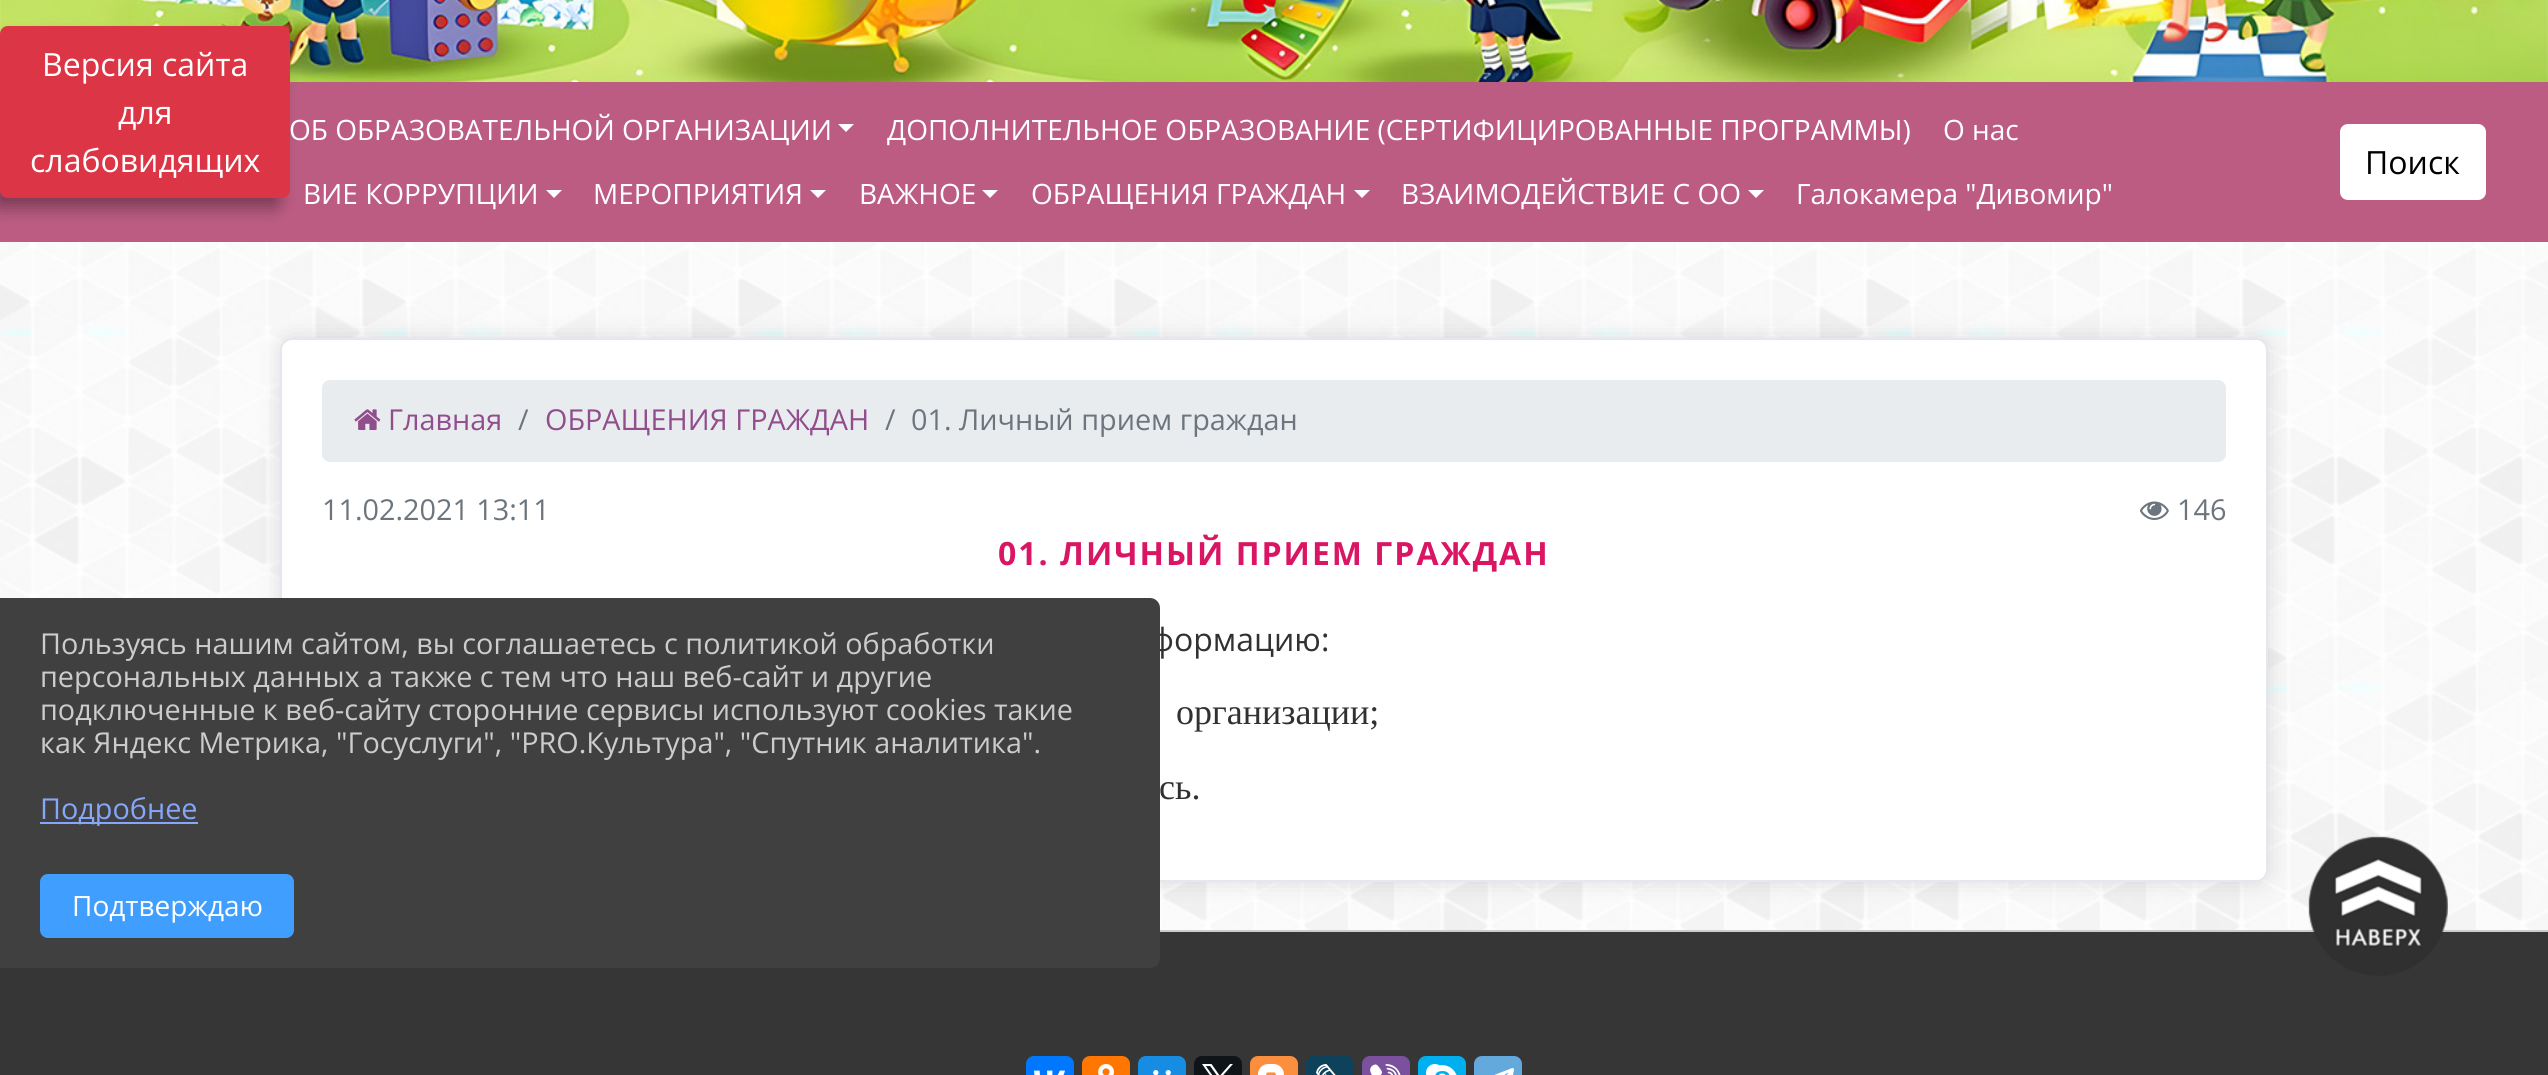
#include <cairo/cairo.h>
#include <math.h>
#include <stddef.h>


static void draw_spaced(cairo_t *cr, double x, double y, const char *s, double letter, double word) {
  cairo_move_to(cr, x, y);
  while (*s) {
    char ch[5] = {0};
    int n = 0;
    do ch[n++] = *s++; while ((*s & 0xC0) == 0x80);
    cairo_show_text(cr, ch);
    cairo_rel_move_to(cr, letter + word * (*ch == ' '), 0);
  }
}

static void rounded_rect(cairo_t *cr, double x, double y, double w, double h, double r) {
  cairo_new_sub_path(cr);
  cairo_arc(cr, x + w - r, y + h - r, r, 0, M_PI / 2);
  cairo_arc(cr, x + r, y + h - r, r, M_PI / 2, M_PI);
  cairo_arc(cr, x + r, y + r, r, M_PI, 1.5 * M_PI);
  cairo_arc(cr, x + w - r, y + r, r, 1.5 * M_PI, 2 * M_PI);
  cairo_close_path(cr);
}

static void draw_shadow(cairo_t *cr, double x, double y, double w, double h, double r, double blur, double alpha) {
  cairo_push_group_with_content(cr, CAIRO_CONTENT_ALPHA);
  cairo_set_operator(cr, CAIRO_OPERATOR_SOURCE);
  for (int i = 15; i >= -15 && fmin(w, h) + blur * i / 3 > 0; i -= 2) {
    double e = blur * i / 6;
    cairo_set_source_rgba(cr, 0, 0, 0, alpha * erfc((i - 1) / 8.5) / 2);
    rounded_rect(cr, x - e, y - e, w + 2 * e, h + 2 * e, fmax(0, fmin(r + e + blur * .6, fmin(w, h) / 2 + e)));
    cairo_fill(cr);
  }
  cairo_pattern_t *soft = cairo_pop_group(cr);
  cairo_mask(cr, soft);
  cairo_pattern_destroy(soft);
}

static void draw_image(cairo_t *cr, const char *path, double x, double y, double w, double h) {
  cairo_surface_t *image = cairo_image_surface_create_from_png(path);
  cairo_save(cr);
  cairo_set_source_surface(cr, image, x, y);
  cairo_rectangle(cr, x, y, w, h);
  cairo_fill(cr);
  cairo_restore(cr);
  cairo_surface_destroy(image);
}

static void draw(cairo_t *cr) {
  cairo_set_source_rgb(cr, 1, 1, 1);
  cairo_paint(cr);
  draw_image(cr, "images/1.png", 0, 242, 2548, 688);
  draw_image(cr, "images/2.png", 0, 0, 2548, 82);
  cairo_set_source_rgb(cr, 188 / 255.0, 92 / 255.0, 131 / 255.0);
  cairo_rectangle(cr, 0, 82, 2548, 160);
  cairo_fill(cr);
  cairo_set_source_rgb(cr, 0, 0, 0);
  draw_shadow(cr, -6, 40, 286, 168, 6, 8, 0.35);
  cairo_set_source_rgb(cr, 220 / 255.0, 53 / 255.0, 69 / 255.0);
  rounded_rect(cr, 1, 27, 288, 170, 7);
  cairo_fill_preserve(cr);
  cairo_stroke(cr);
  cairo_set_source_rgb(cr, 1, 1, 1);
  cairo_new_path(cr);
  cairo_move_to(cr, 838, 124);
  cairo_line_to(cr, 854, 124);
  cairo_line_to(cr, 846, 132);
  cairo_close_path(cr);
  cairo_fill(cr);
  cairo_new_path(cr);
  cairo_move_to(cr, 546, 190);
  cairo_line_to(cr, 562, 190);
  cairo_line_to(cr, 554, 198);
  cairo_close_path(cr);
  cairo_fill(cr);
  cairo_new_path(cr);
  cairo_move_to(cr, 810, 190);
  cairo_line_to(cr, 826, 190);
  cairo_line_to(cr, 818, 198);
  cairo_close_path(cr);
  cairo_fill(cr);
  cairo_new_path(cr);
  cairo_move_to(cr, 982, 190);
  cairo_line_to(cr, 998, 190);
  cairo_line_to(cr, 990, 198);
  cairo_close_path(cr);
  cairo_fill(cr);
  cairo_new_path(cr);
  cairo_move_to(cr, 1354, 190);
  cairo_line_to(cr, 1370, 190);
  cairo_line_to(cr, 1362, 198);
  cairo_close_path(cr);
  cairo_fill(cr);
  cairo_new_path(cr);
  cairo_move_to(cr, 1748, 190);
  cairo_line_to(cr, 1764, 190);
  cairo_line_to(cr, 1756, 198);
  cairo_close_path(cr);
  cairo_fill(cr);
  rounded_rect(cr, 2341, 125, 144, 74, 7);
  cairo_fill_preserve(cr);
  cairo_stroke(cr);
  cairo_set_source_rgb(cr, 0, 0, 0);
  draw_shadow(cr, 280, 338, 1988, 544, 12, 12, 0.12);
  cairo_set_source_rgb(cr, 1, 1, 1);
  rounded_rect(cr, 281, 339, 1986, 542, 11);
  cairo_fill_preserve(cr);
  cairo_set_source_rgb(cr, 228 / 255.0, 231 / 255.0, 237 / 255.0);
  cairo_stroke(cr);
  cairo_set_source_rgb(cr, 233 / 255.0, 236 / 255.0, 239 / 255.0);
  rounded_rect(cr, 322, 380, 1904, 82, 8);
  cairo_fill(cr);
  draw_image(cr, "images/3.png", 354, 409, 27, 21);
  draw_image(cr, "images/4.png", 2140, 501, 29, 19);
  cairo_set_source_rgb(cr, 55 / 255.0, 54 / 255.0, 54 / 255.0);
  cairo_rectangle(cr, 0, 932, 2548, 143);
  cairo_fill(cr);
  cairo_set_source_rgb(cr, 204 / 255.0, 204 / 255.0, 204 / 255.0);
  cairo_rectangle(cr, 1160, 930, 1388, 2);
  cairo_fill(cr);
  draw_image(cr, "images/5.png", 2308, 836, 140, 140);
  cairo_set_source_rgb(cr, 0, 119 / 255.0, 1);
  rounded_rect(cr, 1026, 1056, 48, 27, 8);
  cairo_fill(cr);
  draw_image(cr, "images/6.png", 1034, 1070, 31, 5);
  cairo_set_source_rgb(cr, 1, 119 / 255.0, 0);
  rounded_rect(cr, 1082, 1056, 48, 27, 8);
  cairo_fill(cr);
  draw_image(cr, "images/7.png", 1098, 1064, 16, 11);
  cairo_set_source_rgb(cr, 22 / 255.0, 141 / 255.0, 226 / 255.0);
  rounded_rect(cr, 1138, 1056, 48, 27, 8);
  cairo_fill(cr);
  draw_image(cr, "images/8.png", 1153, 1070, 18, 5);
  cairo_set_source_rgb(cr, 15 / 255.0, 20 / 255.0, 25 / 255.0);
  rounded_rect(cr, 1194, 1056, 48, 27, 8);
  cairo_fill(cr);
  draw_image(cr, "images/9.png", 1202, 1064, 31, 11);
  cairo_set_source_rgb(cr, 251 / 255.0, 143 / 255.0, 61 / 255.0);
  rounded_rect(cr, 1250, 1056, 48, 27, 8);
  cairo_fill(cr);
  draw_image(cr, "images/10.png", 1258, 1064, 26, 11);
  cairo_set_source_rgb(cr, 13 / 255.0, 66 / 255.0, 90 / 255.0);
  rounded_rect(cr, 1306, 1056, 48, 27, 8);
  cairo_fill(cr);
  draw_image(cr, "images/11.png", 1316, 1064, 20, 11);
  cairo_set_source_rgb(cr, 123 / 255.0, 81 / 255.0, 157 / 255.0);
  rounded_rect(cr, 1362, 1056, 48, 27, 8);
  cairo_fill(cr);
  draw_image(cr, "images/12.png", 1370, 1064, 31, 11);
  cairo_set_source_rgb(cr, 0, 175 / 255.0, 240 / 255.0);
  rounded_rect(cr, 1418, 1056, 48, 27, 8);
  cairo_fill(cr);
  draw_image(cr, "images/13.png", 1426, 1064, 31, 11);
  cairo_set_source_rgb(cr, 100 / 255.0, 169 / 255.0, 220 / 255.0);
  rounded_rect(cr, 1474, 1056, 48, 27, 8);
  cairo_fill(cr);
  draw_image(cr, "images/14.png", 1494, 1068, 20, 7);
  cairo_select_font_face(cr, "Open Sans", CAIRO_FONT_SLANT_NORMAL, CAIRO_FONT_WEIGHT_NORMAL);
  cairo_set_font_size(cr, 32);
  cairo_set_source_rgb(cr, 1, 1, 1);
  cairo_move_to(cr, 42, 76);
  cairo_show_text(cr, "Версия сайта");
  cairo_move_to(cr, 118, 124);
  cairo_show_text(cr, "для");
  cairo_move_to(cr, 30, 172);
  cairo_show_text(cr, "слабовидящих");
  cairo_set_font_size(cr, 28);
  cairo_move_to(cr, 289, 140);
  cairo_show_text(cr, "ОБ ОБРАЗОВАТЕЛЬНОЙ ОРГАНИЗАЦИИ");
  cairo_move_to(cr, 887, 140);
  cairo_show_text(cr, "ДОПОЛНИТЕЛЬНОЕ ОБРАЗОВАНИЕ (СЕРТИФИЦИРОВАННЫЕ ПРОГРАММЫ)");
  cairo_move_to(cr, 1943, 140);
  cairo_show_text(cr, "О нас");
  cairo_move_to(cr, 303, 204);
  cairo_show_text(cr, "ВИЕ КОРРУПЦИИ");
  cairo_move_to(cr, 593, 204);
  cairo_show_text(cr, "МЕРОПРИЯТИЯ");
  cairo_move_to(cr, 859, 204);
  cairo_show_text(cr, "ВАЖНОЕ");
  cairo_move_to(cr, 1031, 204);
  cairo_show_text(cr, "ОБРАЩЕНИЯ ГРАЖДАН");
  cairo_move_to(cr, 1401, 204);
  cairo_show_text(cr, "ВЗАИМОДЕЙСТВИЕ С ОО");
  cairo_move_to(cr, 1796, 204);
  cairo_show_text(cr, "Галокамера \"Дивомир\"");
  cairo_set_font_size(cr, 32);
  cairo_set_source_rgb(cr, 0, 0, 0);
  cairo_move_to(cr, 2365, 174);
  cairo_show_text(cr, "Поиск");
  cairo_set_font_size(cr, 28.8);
  cairo_set_source_rgb(cr, 145 / 255.0, 77 / 255.0, 140 / 255.0);
  cairo_move_to(cr, 388, 430);
  cairo_show_text(cr, "Главная");
  cairo_set_source_rgb(cr, 108 / 255.0, 117 / 255.0, 125 / 255.0);
  cairo_move_to(cr, 518, 430);
  cairo_show_text(cr, "/");
  cairo_set_source_rgb(cr, 145 / 255.0, 77 / 255.0, 140 / 255.0);
  cairo_move_to(cr, 545, 430);
  cairo_show_text(cr, "ОБРАЩЕНИЯ ГРАЖДАН");
  cairo_set_source_rgb(cr, 108 / 255.0, 117 / 255.0, 125 / 255.0);
  cairo_move_to(cr, 885, 430);
  cairo_show_text(cr, "/");
  cairo_move_to(cr, 911, 430);
  cairo_show_text(cr, "01. Личный прием граждан");
  cairo_move_to(cr, 322, 520);
  cairo_show_text(cr, "11.02.2021 13:11");
  cairo_move_to(cr, 2177, 520);
  cairo_show_text(cr, "146");
  cairo_select_font_face(cr, "Open Sans", CAIRO_FONT_SLANT_NORMAL, CAIRO_FONT_WEIGHT_BOLD);
  cairo_set_font_size(cr, 32);
  cairo_set_source_rgb(cr, 218 / 255.0, 21 / 255.0, 100 / 255.0);
  draw_spaced(cr, 998, 565, "01. ЛИЧНЫЙ ПРИЕМ ГРАЖДАН", 2, 0);
  cairo_select_font_face(cr, "Open Sans", CAIRO_FONT_SLANT_NORMAL, CAIRO_FONT_WEIGHT_NORMAL);
  cairo_set_source_rgb(cr, 48 / 255.0, 49 / 255.0, 51 / 255.0);
  cairo_move_to(cr, 1151, 651);
  cairo_show_text(cr, "формацию:");
  cairo_select_font_face(cr, "Liberation Serif", CAIRO_FONT_SLANT_NORMAL, CAIRO_FONT_WEIGHT_NORMAL);
  cairo_set_font_size(cr, 36);
  cairo_move_to(cr, 1176, 724);
  cairo_show_text(cr, "организации;");
  cairo_move_to(cr, 1159, 799);
  cairo_show_text(cr, "сь.");
  cairo_set_source_rgb(cr, 64 / 255.0, 64 / 255.0, 64 / 255.0);
  cairo_new_path(cr);
  cairo_move_to(cr, 0, 598);
  cairo_line_to(cr, 1150, 598);
  cairo_curve_to(cr, 1155.5, 598, 1160, 602.5, 1160, 608);
  cairo_line_to(cr, 1160, 958);
  cairo_curve_to(cr, 1160, 963.5, 1155.5, 968, 1150, 968);
  cairo_line_to(cr, 0, 968);
  cairo_close_path(cr);
  cairo_fill(cr);
  cairo_select_font_face(cr, "Open Sans", CAIRO_FONT_SLANT_NORMAL, CAIRO_FONT_WEIGHT_NORMAL);
  cairo_set_font_size(cr, 28.8);
  cairo_set_source_rgb(cr, 204 / 255.0, 204 / 255.0, 204 / 255.0);
  cairo_move_to(cr, 40, 654);
  cairo_show_text(cr, "Пользуясь нашим сайтом, вы соглашаетесь с политикой обработки");
  cairo_move_to(cr, 40, 687);
  cairo_show_text(cr, "персональных данных а также с тем что наш веб-сайт и другие");
  cairo_move_to(cr, 40, 720);
  cairo_show_text(cr, "подключенные к веб-сайту сторонние сервисы используют cookies такие");
  cairo_move_to(cr, 40, 753);
  cairo_show_text(cr, "как Яндекс Метрика, \"Госуслуги\", \"PRO.Культура\", \"Спутник аналитика\".");
  cairo_set_source_rgb(cr, 133 / 255.0, 166 / 255.0, 249 / 255.0);
  cairo_rectangle(cr, 40, 822, 158, 2);
  cairo_fill(cr);
  cairo_move_to(cr, 40, 819);
  cairo_show_text(cr, "Подробнее");
  cairo_set_source_rgb(cr, 64 / 255.0, 158 / 255.0, 1);
  rounded_rect(cr, 41, 875, 252, 62, 7);
  cairo_fill_preserve(cr);
  cairo_stroke(cr);
  cairo_set_font_size(cr, 28);
  cairo_set_source_rgb(cr, 1, 1, 1);
  cairo_move_to(cr, 72, 916);
  cairo_show_text(cr, "Подтверждаю");
}

int main(void) {
  cairo_surface_t *surface = cairo_image_surface_create(CAIRO_FORMAT_RGB24, 2548, 1075);
  cairo_t *cr = cairo_create(surface);
  cairo_font_options_t *options = cairo_font_options_create();
  cairo_font_options_set_hint_metrics(options, CAIRO_HINT_METRICS_OFF);
  cairo_font_options_set_hint_style(options, CAIRO_HINT_STYLE_NONE);
  cairo_set_font_options(cr, options);
  cairo_set_miter_limit(cr, 4);
  draw(cr);
  cairo_surface_write_to_png(surface, "out.png");
  cairo_font_options_destroy(options);
  cairo_destroy(cr);
  cairo_surface_destroy(surface);
  return 0;
}
